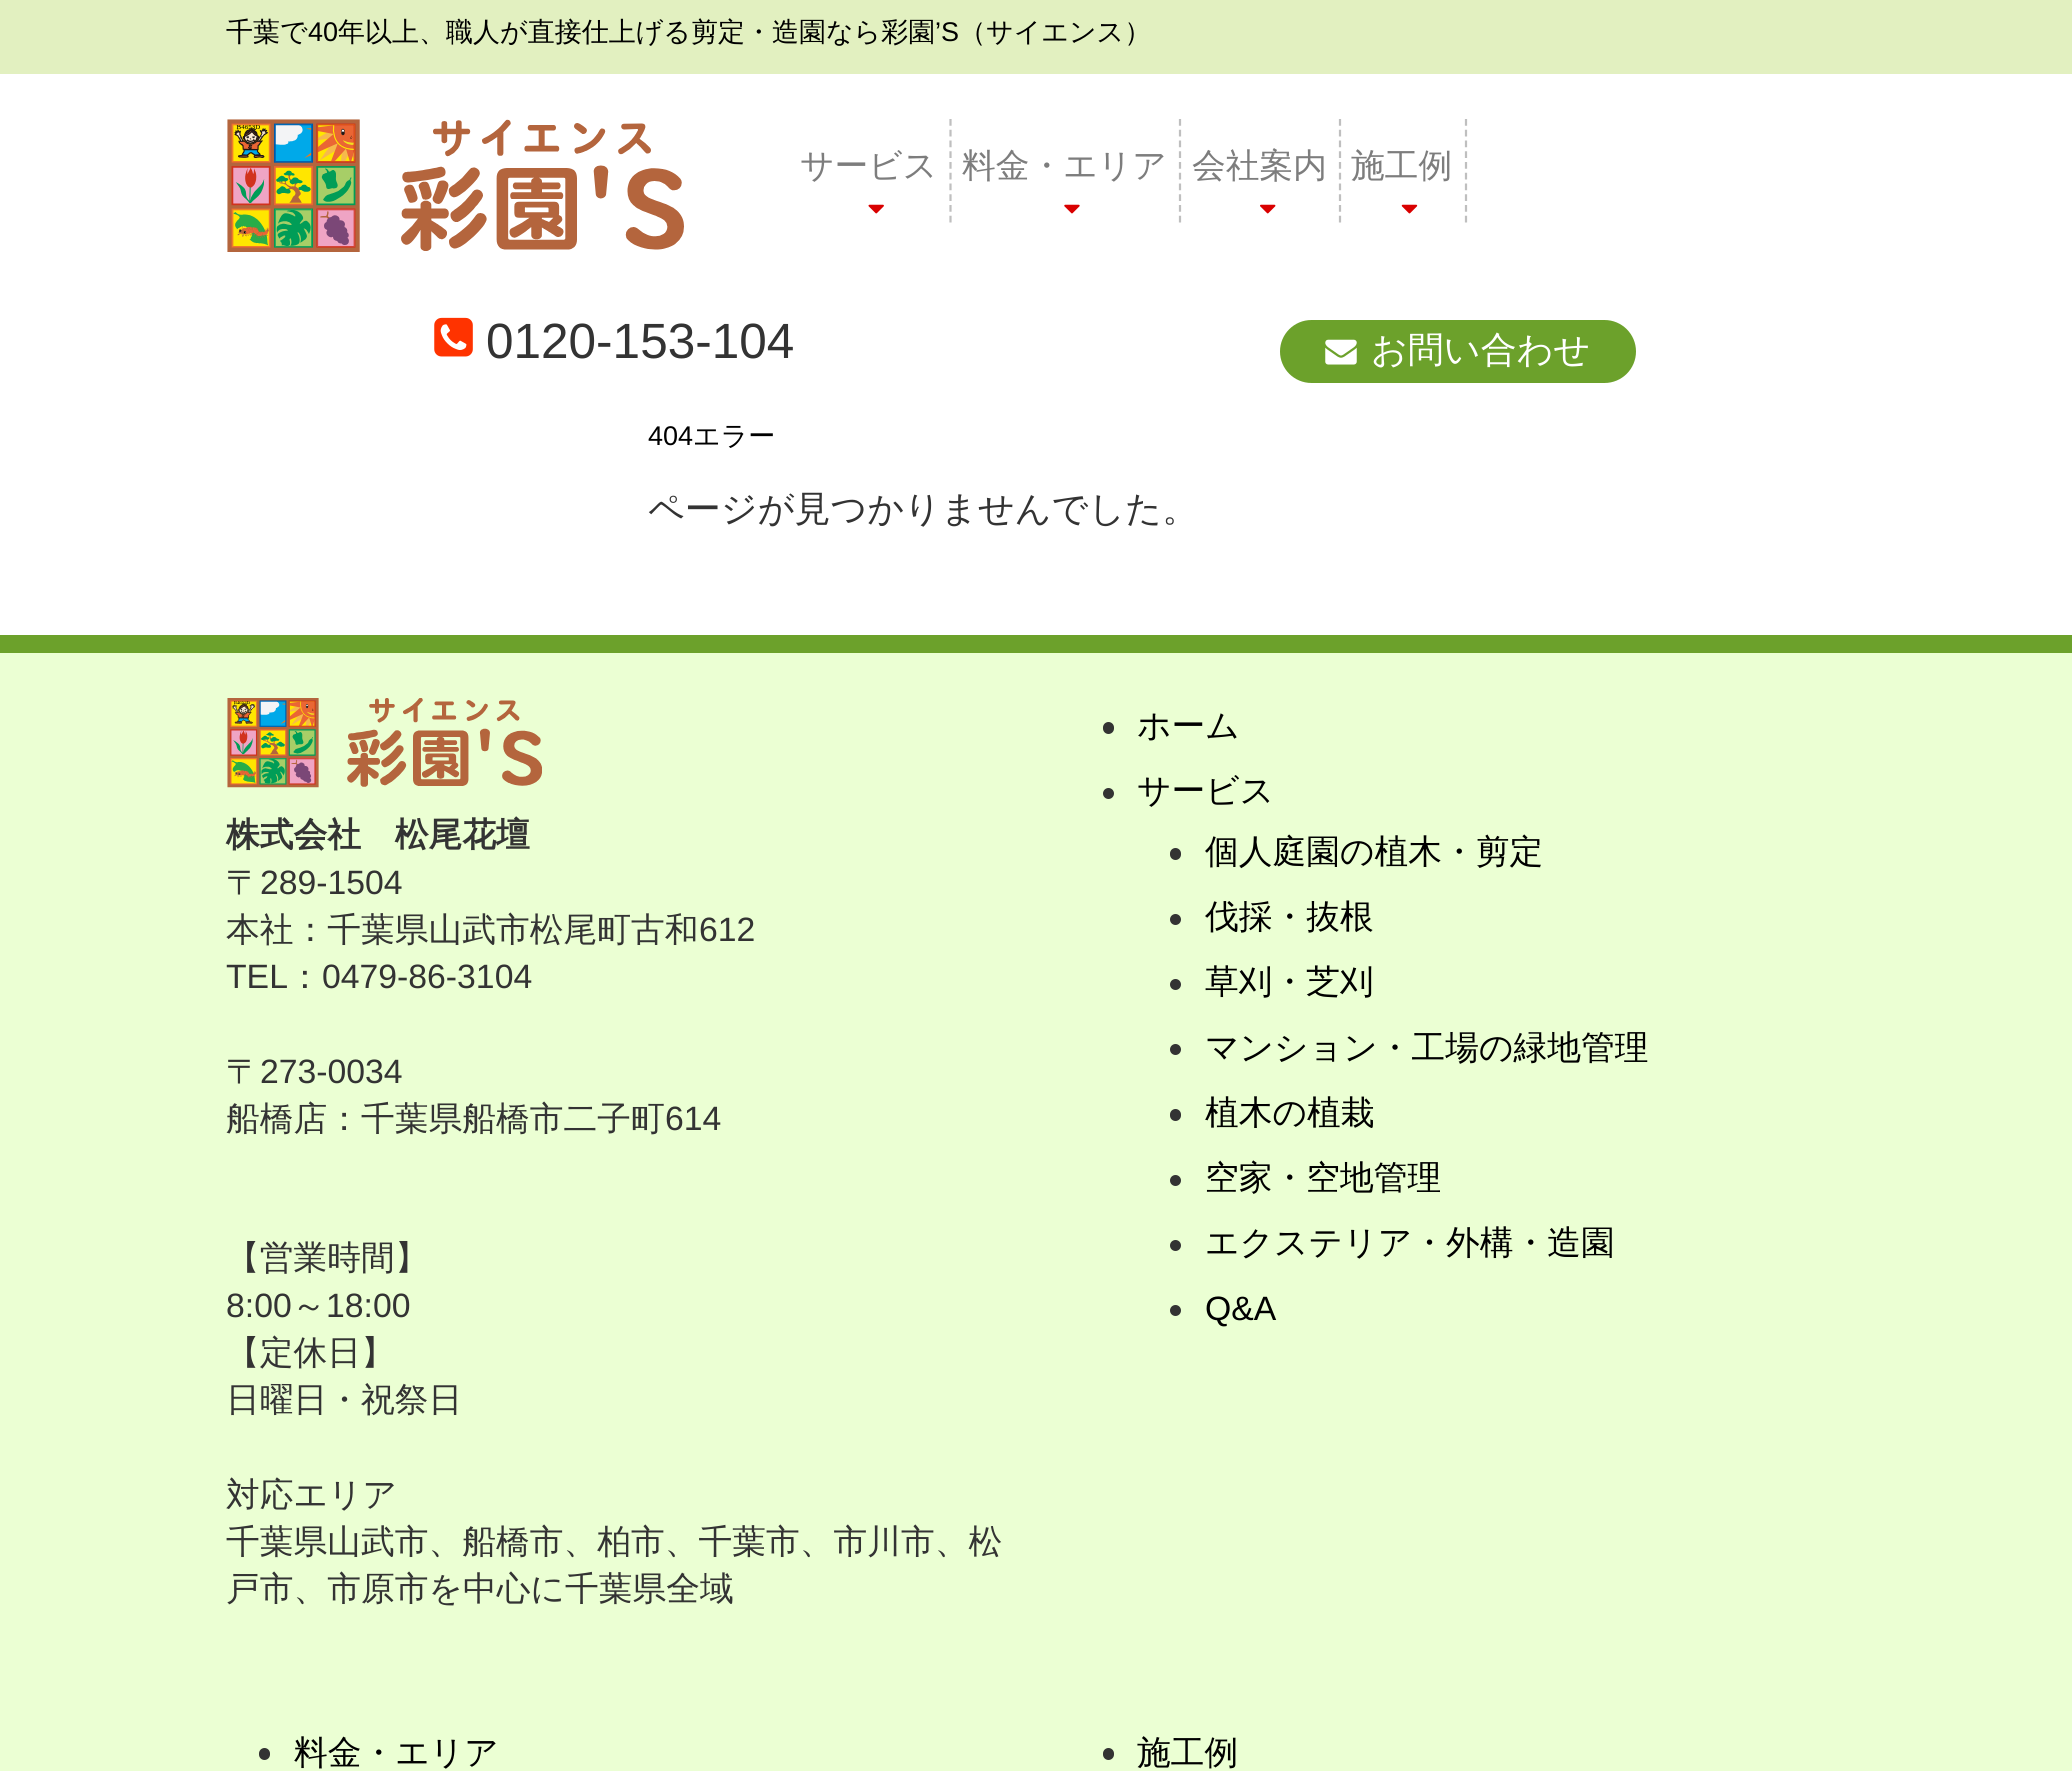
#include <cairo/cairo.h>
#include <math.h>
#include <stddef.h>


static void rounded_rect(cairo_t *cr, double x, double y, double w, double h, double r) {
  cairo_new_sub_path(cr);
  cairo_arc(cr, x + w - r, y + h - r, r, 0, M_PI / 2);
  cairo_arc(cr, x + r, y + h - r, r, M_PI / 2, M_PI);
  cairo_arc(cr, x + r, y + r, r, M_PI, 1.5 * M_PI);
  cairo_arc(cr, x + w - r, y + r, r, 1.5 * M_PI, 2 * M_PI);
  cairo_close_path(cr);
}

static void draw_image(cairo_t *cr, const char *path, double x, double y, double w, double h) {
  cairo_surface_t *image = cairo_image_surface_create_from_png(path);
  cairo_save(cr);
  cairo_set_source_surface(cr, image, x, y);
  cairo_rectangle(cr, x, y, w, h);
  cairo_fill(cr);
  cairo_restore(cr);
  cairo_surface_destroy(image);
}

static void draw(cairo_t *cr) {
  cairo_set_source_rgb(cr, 1, 1, 1);
  cairo_paint(cr);
  cairo_set_source_rgb(cr, 226 / 255.0, 240 / 255.0, 192 / 255.0);
  cairo_rectangle(cr, 0, 0, 2072, 74);
  cairo_fill(cr);
  draw_image(cr, "images/1.png", 227, 119, 457, 133);
  cairo_new_path(cr);
  cairo_move_to(cr, 950.5, 119);
  cairo_line_to(cr, 950.5, 223);
  cairo_set_source_rgb(cr, 191 / 255.0, 191 / 255.0, 191 / 255.0);
  cairo_set_line_width(cr, 2.2);
  cairo_set_dash(cr, (double[]){6.75, 4}, 2, 0);
  cairo_stroke(cr);
  draw_image(cr, "images/2.png", 868, 204, 16, 10);
  cairo_new_path(cr);
  cairo_move_to(cr, 1180, 119);
  cairo_line_to(cr, 1180, 223);
  cairo_stroke(cr);
  draw_image(cr, "images/3.png", 1064, 204, 16, 10);
  cairo_new_path(cr);
  cairo_move_to(cr, 1340, 119);
  cairo_line_to(cr, 1340, 223);
  cairo_stroke(cr);
  draw_image(cr, "images/4.png", 1260, 204, 16, 10);
  cairo_new_path(cr);
  cairo_move_to(cr, 1466, 119);
  cairo_line_to(cr, 1466, 223);
  cairo_stroke(cr);
  draw_image(cr, "images/5.png", 1401, 204, 17, 10);
  draw_image(cr, "images/6.png", 434, 317, 39, 40);
  cairo_set_source_rgb(cr, 108 / 255.0, 161 / 255.0, 43 / 255.0);
  rounded_rect(cr, 1280, 320, 356, 63, 31.5);
  cairo_fill(cr);
  draw_image(cr, "images/7.png", 1325, 339, 32, 26);
  cairo_set_source_rgb(cr, 235 / 255.0, 1, 211 / 255.0);
  cairo_rectangle(cr, 0, 653, 2072, 1118);
  cairo_fill(cr);
  cairo_set_source_rgb(cr, 108 / 255.0, 161 / 255.0, 43 / 255.0);
  cairo_rectangle(cr, 0, 635, 2072, 18);
  cairo_fill(cr);
  draw_image(cr, "images/8.png", 227, 698, 315, 90);
  cairo_set_source_rgb(cr, 51 / 255.0, 51 / 255.0, 51 / 255.0);
  rounded_rect(cr, 1103, 722, 11, 12, 5.5);
  cairo_fill(cr);
  cairo_arc(cr, 1108.5, 793.5, 5.5, 0, 2 * M_PI);
  cairo_fill(cr);
  rounded_rect(cr, 1170, 848, 11, 12, 5.5);
  cairo_fill(cr);
  cairo_arc(cr, 1175.5, 919.5, 5.5, 0, 2 * M_PI);
  cairo_fill(cr);
  cairo_arc(cr, 1175.5, 984.5, 5.5, 0, 2 * M_PI);
  cairo_fill(cr);
  cairo_arc(cr, 1175.5, 1049.5, 5.5, 0, 2 * M_PI);
  cairo_fill(cr);
  rounded_rect(cr, 1170, 1109, 11, 12, 5.5);
  cairo_fill(cr);
  cairo_arc(cr, 1175.5, 1180.5, 5.5, 0, 2 * M_PI);
  cairo_fill(cr);
  cairo_arc(cr, 1175.5, 1245.5, 5.5, 0, 2 * M_PI);
  cairo_fill(cr);
  cairo_arc(cr, 1175.5, 1310.5, 5.5, 0, 2 * M_PI);
  cairo_fill(cr);
  rounded_rect(cr, 259, 1748, 11, 12, 5.5);
  cairo_fill(cr);
  rounded_rect(cr, 1103, 1748, 11, 12, 5.5);
  cairo_fill(cr);
  cairo_select_font_face(cr, "WenQuanYi Zen Hei Medium", CAIRO_FONT_SLANT_NORMAL, CAIRO_FONT_WEIGHT_NORMAL);
  cairo_set_font_size(cr, 27);
  cairo_set_source_rgb(cr, 0, 0, 0);
  cairo_move_to(cr, 226, 41);
  cairo_show_text(cr, "千葉で");
  cairo_select_font_face(cr, "Liberation Sans", CAIRO_FONT_SLANT_NORMAL, CAIRO_FONT_WEIGHT_NORMAL);
  cairo_move_to(cr, 308, 41);
  cairo_show_text(cr, "40");
  cairo_select_font_face(cr, "WenQuanYi Zen Hei Medium", CAIRO_FONT_SLANT_NORMAL, CAIRO_FONT_WEIGHT_NORMAL);
  cairo_move_to(cr, 338, 41);
  cairo_show_text(cr, "年以上、職人が直接仕上げる剪定・造園なら彩園");
  cairo_select_font_face(cr, "Liberation Sans", CAIRO_FONT_SLANT_NORMAL, CAIRO_FONT_WEIGHT_NORMAL);
  cairo_move_to(cr, 935, 41);
  cairo_show_text(cr, "’S");
  cairo_select_font_face(cr, "WenQuanYi Zen Hei Medium", CAIRO_FONT_SLANT_NORMAL, CAIRO_FONT_WEIGHT_NORMAL);
  cairo_move_to(cr, 959, 41);
  cairo_show_text(cr, "（サイエンス）");
  cairo_set_font_size(cr, 33.75);
  cairo_set_source_rgb(cr, 125 / 255.0, 125 / 255.0, 125 / 255.0);
  cairo_move_to(cr, 800, 177);
  cairo_show_text(cr, "サービス");
  cairo_move_to(cr, 962, 177);
  cairo_show_text(cr, "料金・エリア");
  cairo_move_to(cr, 1192, 177);
  cairo_show_text(cr, "会社案内");
  cairo_move_to(cr, 1351, 177);
  cairo_show_text(cr, "施工例");
  cairo_select_font_face(cr, "Liberation Sans", CAIRO_FONT_SLANT_NORMAL, CAIRO_FONT_WEIGHT_NORMAL);
  cairo_set_font_size(cr, 49.5);
  cairo_set_source_rgb(cr, 51 / 255.0, 51 / 255.0, 51 / 255.0);
  cairo_move_to(cr, 486, 358);
  cairo_show_text(cr, "0120-153-104");
  cairo_select_font_face(cr, "WenQuanYi Zen Hei Medium", CAIRO_FONT_SLANT_NORMAL, CAIRO_FONT_WEIGHT_NORMAL);
  cairo_set_font_size(cr, 36);
  cairo_set_source_rgb(cr, 1, 1, 1);
  cairo_move_to(cr, 1371, 362);
  cairo_show_text(cr, "お問い合わせ");
  cairo_select_font_face(cr, "Liberation Sans", CAIRO_FONT_SLANT_NORMAL, CAIRO_FONT_WEIGHT_NORMAL);
  cairo_set_font_size(cr, 27);
  cairo_set_source_rgb(cr, 0, 0, 0);
  cairo_move_to(cr, 648, 445);
  cairo_show_text(cr, "404");
  cairo_select_font_face(cr, "WenQuanYi Zen Hei Medium", CAIRO_FONT_SLANT_NORMAL, CAIRO_FONT_WEIGHT_NORMAL);
  cairo_move_to(cr, 693, 445);
  cairo_show_text(cr, "エラー");
  cairo_set_font_size(cr, 36);
  cairo_set_source_rgb(cr, 51 / 255.0, 51 / 255.0, 51 / 255.0);
  cairo_move_to(cr, 648, 521);
  cairo_show_text(cr, "ページが見つかりませんでした。");
  cairo_select_font_face(cr, "WenQuanYi Zen Hei", CAIRO_FONT_SLANT_NORMAL, CAIRO_FONT_WEIGHT_BOLD);
  cairo_set_font_size(cr, 33.75);
  cairo_move_to(cr, 226, 846);
  cairo_show_text(cr, "株式会社　松尾花壇");
  cairo_select_font_face(cr, "WenQuanYi Zen Hei Medium", CAIRO_FONT_SLANT_NORMAL, CAIRO_FONT_WEIGHT_NORMAL);
  cairo_move_to(cr, 226, 894);
  cairo_show_text(cr, "〒");
  cairo_select_font_face(cr, "Liberation Sans", CAIRO_FONT_SLANT_NORMAL, CAIRO_FONT_WEIGHT_NORMAL);
  cairo_move_to(cr, 260, 894);
  cairo_show_text(cr, "289-1504");
  cairo_select_font_face(cr, "WenQuanYi Zen Hei Medium", CAIRO_FONT_SLANT_NORMAL, CAIRO_FONT_WEIGHT_NORMAL);
  cairo_move_to(cr, 226, 941);
  cairo_show_text(cr, "本社：千葉県山武市松尾町古和");
  cairo_select_font_face(cr, "Liberation Sans", CAIRO_FONT_SLANT_NORMAL, CAIRO_FONT_WEIGHT_NORMAL);
  cairo_move_to(cr, 699, 941);
  cairo_show_text(cr, "612");
  cairo_move_to(cr, 226, 988);
  cairo_show_text(cr, "TEL");
  cairo_select_font_face(cr, "WenQuanYi Zen Hei Medium", CAIRO_FONT_SLANT_NORMAL, CAIRO_FONT_WEIGHT_NORMAL);
  cairo_move_to(cr, 288, 988);
  cairo_show_text(cr, "：");
  cairo_select_font_face(cr, "Liberation Sans", CAIRO_FONT_SLANT_NORMAL, CAIRO_FONT_WEIGHT_NORMAL);
  cairo_move_to(cr, 322, 988);
  cairo_show_text(cr, "0479-86-3104");
  cairo_select_font_face(cr, "WenQuanYi Zen Hei Medium", CAIRO_FONT_SLANT_NORMAL, CAIRO_FONT_WEIGHT_NORMAL);
  cairo_move_to(cr, 226, 1083);
  cairo_show_text(cr, "〒");
  cairo_select_font_face(cr, "Liberation Sans", CAIRO_FONT_SLANT_NORMAL, CAIRO_FONT_WEIGHT_NORMAL);
  cairo_move_to(cr, 260, 1083);
  cairo_show_text(cr, "273-0034");
  cairo_select_font_face(cr, "WenQuanYi Zen Hei Medium", CAIRO_FONT_SLANT_NORMAL, CAIRO_FONT_WEIGHT_NORMAL);
  cairo_move_to(cr, 226, 1130);
  cairo_show_text(cr, "船橋店：千葉県船橋市二子町");
  cairo_select_font_face(cr, "Liberation Sans", CAIRO_FONT_SLANT_NORMAL, CAIRO_FONT_WEIGHT_NORMAL);
  cairo_move_to(cr, 665, 1130);
  cairo_show_text(cr, "614");
  cairo_select_font_face(cr, "WenQuanYi Zen Hei Medium", CAIRO_FONT_SLANT_NORMAL, CAIRO_FONT_WEIGHT_NORMAL);
  cairo_move_to(cr, 226, 1269);
  cairo_show_text(cr, "【営業時間】");
  cairo_select_font_face(cr, "Liberation Sans", CAIRO_FONT_SLANT_NORMAL, CAIRO_FONT_WEIGHT_NORMAL);
  cairo_move_to(cr, 226, 1317);
  cairo_show_text(cr, "8:00");
  cairo_select_font_face(cr, "WenQuanYi Zen Hei Medium", CAIRO_FONT_SLANT_NORMAL, CAIRO_FONT_WEIGHT_NORMAL);
  cairo_move_to(cr, 292, 1317);
  cairo_show_text(cr, "～");
  cairo_select_font_face(cr, "Liberation Sans", CAIRO_FONT_SLANT_NORMAL, CAIRO_FONT_WEIGHT_NORMAL);
  cairo_move_to(cr, 326, 1317);
  cairo_show_text(cr, "18:00");
  cairo_select_font_face(cr, "WenQuanYi Zen Hei Medium", CAIRO_FONT_SLANT_NORMAL, CAIRO_FONT_WEIGHT_NORMAL);
  cairo_move_to(cr, 226, 1364);
  cairo_show_text(cr, "【定休日】");
  cairo_move_to(cr, 226, 1411);
  cairo_show_text(cr, "日曜日・祝祭日");
  cairo_move_to(cr, 226, 1506);
  cairo_show_text(cr, "対応エリア");
  cairo_move_to(cr, 226, 1553);
  cairo_show_text(cr, "千葉県山武市、船橋市、柏市、千葉市、市川市、松");
  cairo_move_to(cr, 226, 1600);
  cairo_show_text(cr, "戸市、市原市を中心に千葉県全域");
  cairo_set_source_rgb(cr, 0, 0, 0);
  cairo_move_to(cr, 1137, 737);
  cairo_show_text(cr, "ホーム");
  cairo_move_to(cr, 1137, 802);
  cairo_show_text(cr, "サービス");
  cairo_move_to(cr, 1205, 863);
  cairo_show_text(cr, "個人庭園の植木・剪定");
  cairo_move_to(cr, 1205, 928);
  cairo_show_text(cr, "伐採・抜根");
  cairo_move_to(cr, 1205, 993);
  cairo_show_text(cr, "草刈・芝刈");
  cairo_move_to(cr, 1205, 1059);
  cairo_show_text(cr, "マンション・工場の緑地管理");
  cairo_move_to(cr, 1205, 1124);
  cairo_show_text(cr, "植木の植栽");
  cairo_move_to(cr, 1205, 1189);
  cairo_show_text(cr, "空家・空地管理");
  cairo_move_to(cr, 1205, 1254);
  cairo_show_text(cr, "エクステリア・外構・造園");
  cairo_select_font_face(cr, "Liberation Sans", CAIRO_FONT_SLANT_NORMAL, CAIRO_FONT_WEIGHT_NORMAL);
  cairo_move_to(cr, 1205, 1320);
  cairo_show_text(cr, "Q&A");
  cairo_select_font_face(cr, "WenQuanYi Zen Hei Medium", CAIRO_FONT_SLANT_NORMAL, CAIRO_FONT_WEIGHT_NORMAL);
  cairo_move_to(cr, 294, 1764);
  cairo_show_text(cr, "料金・エリア");
  cairo_move_to(cr, 1137, 1764);
  cairo_show_text(cr, "施工例");
}

int main(void) {
  cairo_surface_t *surface = cairo_image_surface_create(CAIRO_FORMAT_RGB24, 2072, 1771);
  cairo_t *cr = cairo_create(surface);
  cairo_font_options_t *options = cairo_font_options_create();
  cairo_font_options_set_hint_metrics(options, CAIRO_HINT_METRICS_OFF);
  cairo_font_options_set_hint_style(options, CAIRO_HINT_STYLE_NONE);
  cairo_set_font_options(cr, options);
  cairo_set_miter_limit(cr, 4);
  draw(cr);
  cairo_surface_write_to_png(surface, "out.png");
  cairo_font_options_destroy(options);
  cairo_destroy(cr);
  cairo_surface_destroy(surface);
  return 0;
}
